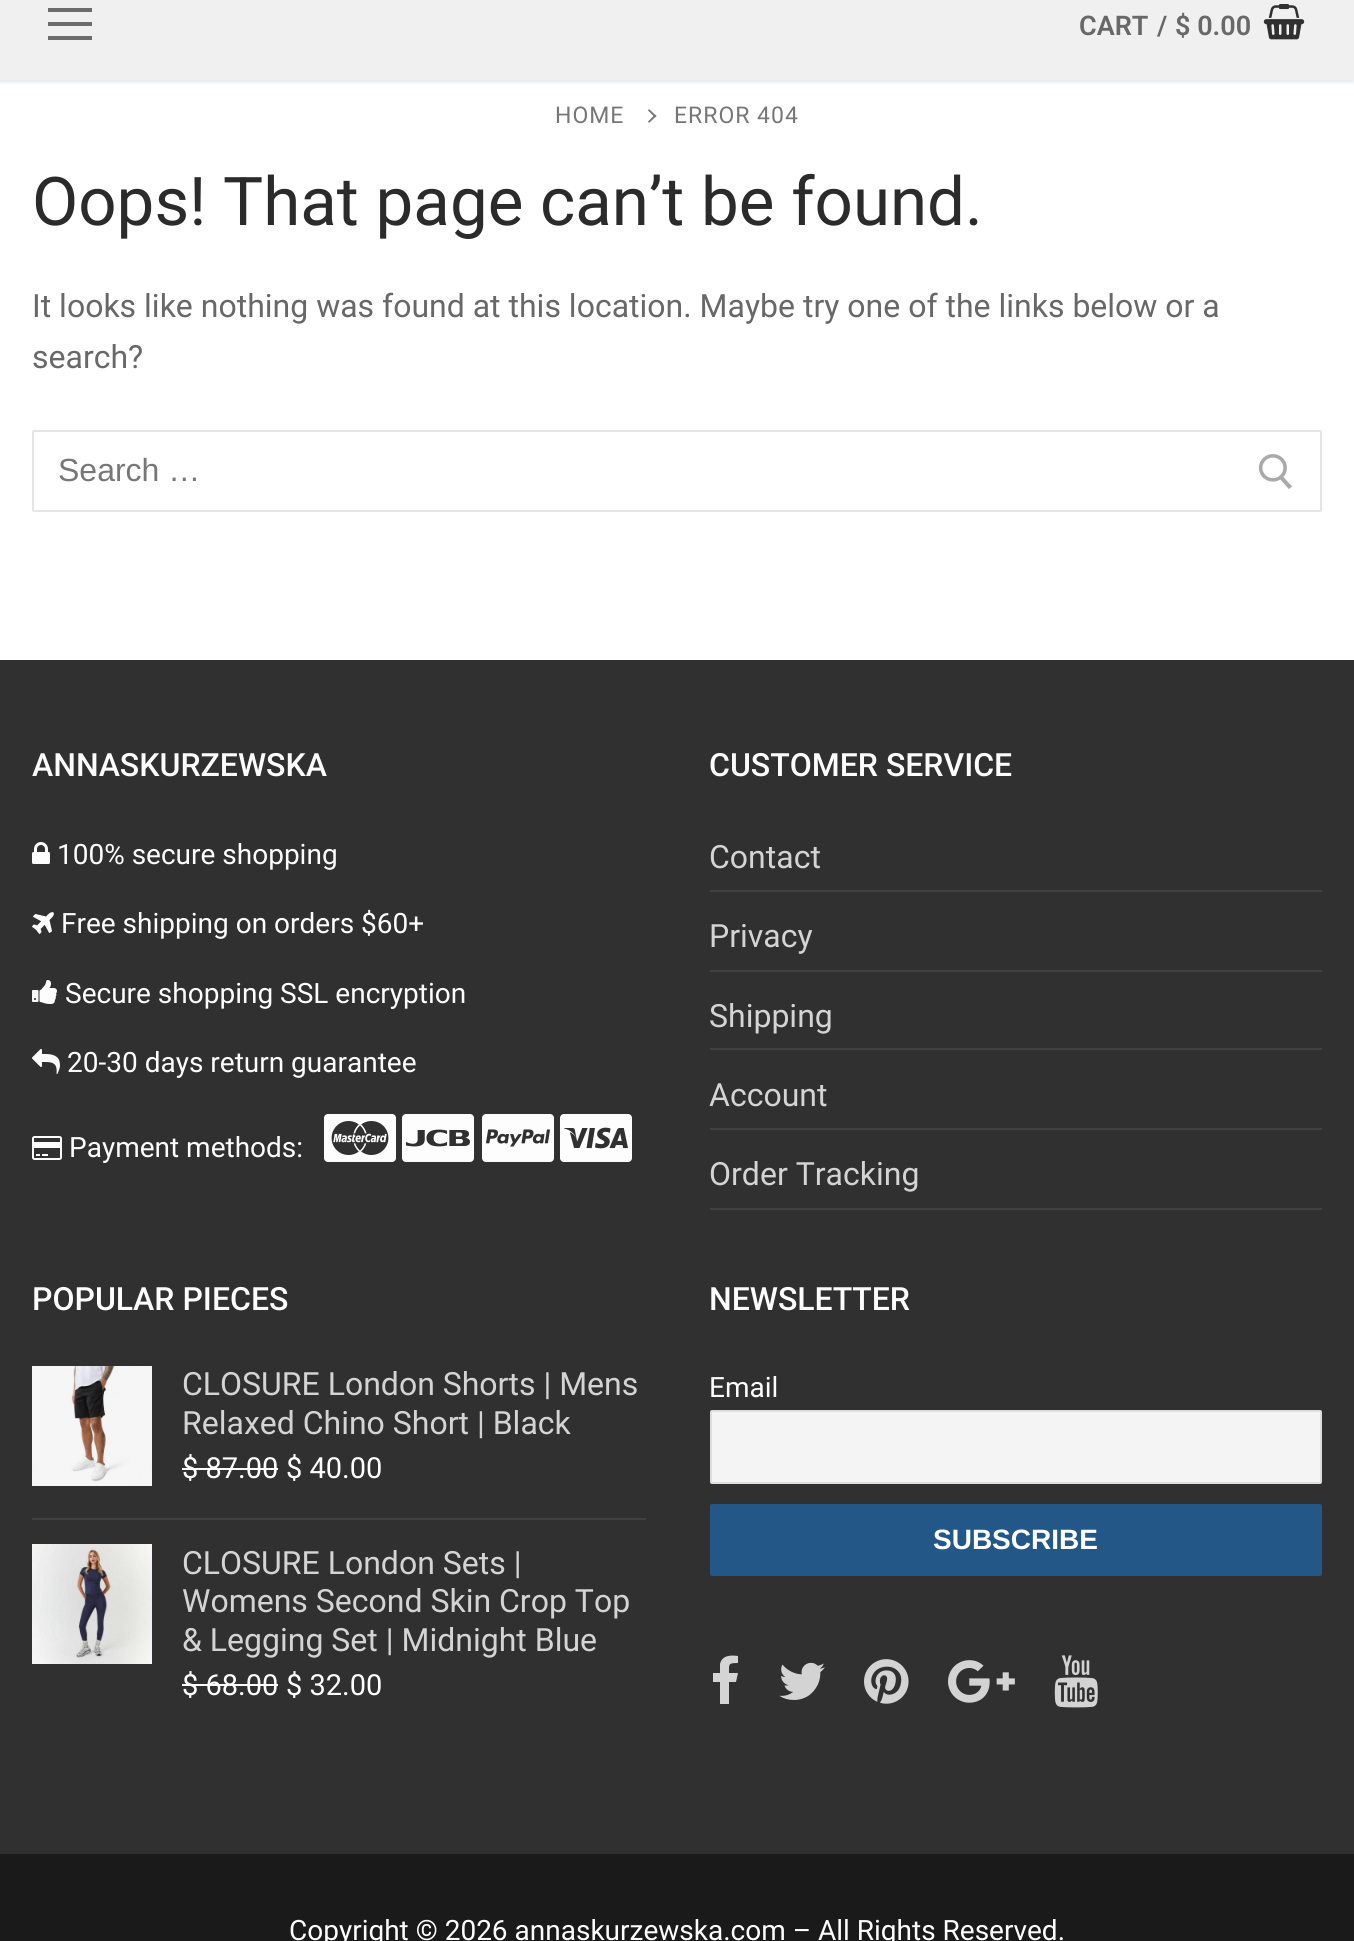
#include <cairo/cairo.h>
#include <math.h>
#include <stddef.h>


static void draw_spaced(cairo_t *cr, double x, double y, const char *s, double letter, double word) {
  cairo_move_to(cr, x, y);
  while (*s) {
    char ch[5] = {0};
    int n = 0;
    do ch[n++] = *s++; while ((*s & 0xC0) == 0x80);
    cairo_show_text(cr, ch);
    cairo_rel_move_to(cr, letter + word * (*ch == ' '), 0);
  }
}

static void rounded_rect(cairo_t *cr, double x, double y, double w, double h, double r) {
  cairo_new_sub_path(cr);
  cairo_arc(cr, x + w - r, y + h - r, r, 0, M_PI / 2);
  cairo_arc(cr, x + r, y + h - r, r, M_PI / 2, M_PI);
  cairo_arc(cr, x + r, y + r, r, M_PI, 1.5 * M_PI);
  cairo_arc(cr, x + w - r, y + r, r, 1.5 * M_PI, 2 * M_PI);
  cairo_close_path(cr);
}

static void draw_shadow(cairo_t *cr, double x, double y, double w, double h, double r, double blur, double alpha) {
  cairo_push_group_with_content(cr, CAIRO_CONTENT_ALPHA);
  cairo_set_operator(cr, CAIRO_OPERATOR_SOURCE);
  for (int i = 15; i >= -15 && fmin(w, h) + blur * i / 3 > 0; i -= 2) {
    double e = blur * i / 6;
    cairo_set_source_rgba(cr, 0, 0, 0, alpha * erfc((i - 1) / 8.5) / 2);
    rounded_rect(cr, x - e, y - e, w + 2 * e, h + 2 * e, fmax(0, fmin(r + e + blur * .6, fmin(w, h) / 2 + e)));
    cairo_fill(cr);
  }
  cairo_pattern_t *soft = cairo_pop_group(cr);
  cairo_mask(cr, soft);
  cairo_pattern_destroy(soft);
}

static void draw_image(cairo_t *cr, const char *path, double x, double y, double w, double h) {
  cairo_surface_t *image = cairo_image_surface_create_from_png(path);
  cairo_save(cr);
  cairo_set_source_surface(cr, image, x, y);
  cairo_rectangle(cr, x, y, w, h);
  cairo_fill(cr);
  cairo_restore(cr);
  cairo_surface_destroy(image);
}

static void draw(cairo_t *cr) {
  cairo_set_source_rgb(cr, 1, 1, 1);
  cairo_paint(cr);
  cairo_set_source_rgb(cr, 225 / 255.0, 229 / 255.0, 234 / 255.0);
  draw_shadow(cr, 0, -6, 1354, 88, 0, 2, 1);
  cairo_set_source_rgb(cr, 240 / 255.0, 240 / 255.0, 240 / 255.0);
  cairo_rectangle(cr, 0, 0, 1354, 80);
  cairo_fill(cr);
  cairo_set_source_rgb(cr, 108 / 255.0, 108 / 255.0, 108 / 255.0);
  cairo_rectangle(cr, 48, 22, 44, 4);
  cairo_fill(cr);
  cairo_rectangle(cr, 48, 8, 44, 4);
  cairo_fill(cr);
  cairo_rectangle(cr, 48, 36, 44, 4);
  cairo_fill(cr);
  draw_image(cr, "images/1.png", 1263, 4, 42, 36);
  cairo_set_source_rgb(cr, 119 / 255.0, 119 / 255.0, 119 / 255.0);
  cairo_new_path(cr);
  cairo_move_to(cr, 656.5, 116);
  cairo_line_to(cr, 649, 123);
  cairo_line_to(cr, 648, 121.5);
  cairo_line_to(cr, 655, 114.5);
  cairo_close_path(cr);
  cairo_fill(cr);
  cairo_new_path(cr);
  cairo_move_to(cr, 656.5, 116);
  cairo_line_to(cr, 655, 117.5);
  cairo_line_to(cr, 648, 110.5);
  cairo_line_to(cr, 649, 109);
  cairo_close_path(cr);
  cairo_fill(cr);
  rounded_rect(cr, 33, 431, 1288, 80, 1);
  cairo_set_source_rgb(cr, 229 / 255.0, 229 / 255.0, 229 / 255.0);
  cairo_stroke(cr);
  draw_image(cr, "images/2.png", 1258, 454, 34, 35);
  cairo_set_source_rgb(cr, 48 / 255.0, 48 / 255.0, 48 / 255.0);
  cairo_rectangle(cr, 0, 660, 1354, 1194);
  cairo_fill(cr);
  draw_image(cr, "images/3.png", 32, 842, 18, 22);
  draw_image(cr, "images/4.png", 32, 912, 22, 22);
  draw_image(cr, "images/5.png", 32, 980, 25, 24);
  draw_image(cr, "images/6.png", 32, 1049, 28, 25);
  draw_image(cr, "images/7.png", 32, 1136, 30, 24);
  draw_image(cr, "images/8.png", 324, 1114, 72, 48);
  draw_image(cr, "images/9.png", 402, 1114, 72, 48);
  draw_image(cr, "images/10.png", 482, 1114, 72, 48);
  draw_image(cr, "images/11.png", 560, 1114, 72, 48);
  cairo_set_source_rgb(cr, 65 / 255.0, 65 / 255.0, 65 / 255.0);
  cairo_rectangle(cr, 710, 890, 612, 2);
  cairo_fill(cr);
  cairo_rectangle(cr, 710, 970, 612, 2);
  cairo_fill(cr);
  cairo_rectangle(cr, 710, 1048, 612, 2);
  cairo_fill(cr);
  cairo_rectangle(cr, 710, 1128, 612, 2);
  cairo_fill(cr);
  cairo_rectangle(cr, 710, 1208, 612, 2);
  cairo_fill(cr);
  cairo_rectangle(cr, 32, 1518, 614, 2);
  cairo_fill(cr);
  draw_image(cr, "images/12.png", 32, 1366, 120, 120);
  draw_image(cr, "images/13.png", 32, 1544, 120, 120);
  cairo_set_source_rgb(cr, 244 / 255.0, 244 / 255.0, 244 / 255.0);
  rounded_rect(cr, 711, 1411, 610, 72, 1);
  cairo_fill_preserve(cr);
  cairo_set_source_rgb(cr, 221 / 255.0, 221 / 255.0, 221 / 255.0);
  cairo_stroke(cr);
  cairo_set_source_rgb(cr, 35 / 255.0, 87 / 255.0, 135 / 255.0);
  rounded_rect(cr, 710, 1504, 612, 72, 2);
  cairo_fill(cr);
  cairo_set_source_rgb(cr, 212 / 255.0, 212 / 255.0, 212 / 255.0);
  cairo_new_path(cr);
  cairo_move_to(cr, 738, 1656);
  cairo_line_to(cr, 738, 1663);
  cairo_curve_to(cr, 728, 1663, 729, 1664, 729, 1673);
  cairo_line_to(cr, 738, 1673);
  cairo_line_to(cr, 736, 1682);
  cairo_line_to(cr, 729, 1682);
  cairo_line_to(cr, 729, 1704);
  cairo_line_to(cr, 720, 1704);
  cairo_line_to(cr, 720, 1682);
  cairo_line_to(cr, 713, 1682);
  cairo_line_to(cr, 713, 1673);
  cairo_line_to(cr, 720, 1673);
  cairo_line_to(cr, 720, 1664);
  cairo_curve_to(cr, 722, 1655, 731, 1655, 738, 1656);
  cairo_close_path(cr);
  cairo_fill(cr);
  draw_image(cr, "images/14.png", 779, 1662, 46, 38);
  draw_image(cr, "images/15.png", 864, 1659, 45, 45);
  draw_image(cr, "images/16.png", 948, 1660, 67, 43);
  draw_image(cr, "images/17.png", 1054, 1655, 44, 53);
  cairo_set_source_rgb(cr, 26 / 255.0, 26 / 255.0, 26 / 255.0);
  cairo_rectangle(cr, 0, 1854, 1354, 87);
  cairo_fill(cr);
  cairo_select_font_face(cr, "Roboto SemiBold", CAIRO_FONT_SLANT_NORMAL, CAIRO_FONT_WEIGHT_NORMAL);
  cairo_set_font_size(cr, 27);
  cairo_set_source_rgb(cr, 104 / 255.0, 104 / 255.0, 104 / 255.0);
  cairo_move_to(cr, 1079, 35);
  cairo_show_text(cr, "CART");
  cairo_move_to(cr, 1157, 35);
  cairo_show_text(cr, "/");
  cairo_move_to(cr, 1175, 35);
  cairo_show_text(cr, "$ 0.00");
  cairo_select_font_face(cr, "Roboto", CAIRO_FONT_SLANT_NORMAL, CAIRO_FONT_WEIGHT_NORMAL);
  cairo_set_font_size(cr, 23);
  cairo_set_source_rgb(cr, 119 / 255.0, 119 / 255.0, 119 / 255.0);
  draw_spaced(cr, 555, 123, "HOME", 1, 0);
  draw_spaced(cr, 674, 123, "ERROR 404", 1, 0);
  cairo_set_font_size(cr, 67.25);
  cairo_set_source_rgb(cr, 43 / 255.0, 43 / 255.0, 43 / 255.0);
  cairo_move_to(cr, 32, 225);
  cairo_show_text(cr, "Oops! That page can’t be found.");
  cairo_set_font_size(cr, 32);
  cairo_set_source_rgb(cr, 104 / 255.0, 104 / 255.0, 104 / 255.0);
  cairo_move_to(cr, 32, 317);
  cairo_show_text(cr, "It looks like nothing was found at this location. Maybe try one of the links below or a");
  cairo_move_to(cr, 32, 368);
  cairo_show_text(cr, "search?");
  cairo_select_font_face(cr, "Liberation Sans", CAIRO_FONT_SLANT_NORMAL, CAIRO_FONT_WEIGHT_NORMAL);
  cairo_set_source_rgb(cr, 119 / 255.0, 119 / 255.0, 119 / 255.0);
  cairo_move_to(cr, 58, 481);
  cairo_show_text(cr, "Search …");
  cairo_select_font_face(cr, "Roboto Medium", CAIRO_FONT_SLANT_NORMAL, CAIRO_FONT_WEIGHT_NORMAL);
  cairo_set_source_rgb(cr, 253 / 255.0, 253 / 255.0, 253 / 255.0);
  cairo_move_to(cr, 32, 776);
  cairo_show_text(cr, "ANNASKURZEWSKA");
  cairo_select_font_face(cr, "Roboto", CAIRO_FONT_SLANT_NORMAL, CAIRO_FONT_WEIGHT_NORMAL);
  cairo_set_font_size(cr, 28);
  cairo_move_to(cr, 57, 864);
  cairo_show_text(cr, "100% secure shopping");
  cairo_move_to(cr, 61, 933);
  cairo_show_text(cr, "Free shipping on orders $60+");
  cairo_move_to(cr, 65, 1003);
  cairo_show_text(cr, "Secure shopping SSL encryption");
  cairo_move_to(cr, 67, 1072);
  cairo_show_text(cr, "20-30 days return guarantee");
  cairo_move_to(cr, 69, 1157);
  cairo_show_text(cr, "Payment methods:");
  cairo_select_font_face(cr, "Roboto Medium", CAIRO_FONT_SLANT_NORMAL, CAIRO_FONT_WEIGHT_NORMAL);
  cairo_set_font_size(cr, 32);
  cairo_move_to(cr, 709, 776);
  cairo_show_text(cr, "CUSTOMER SERVICE");
  cairo_select_font_face(cr, "Roboto", CAIRO_FONT_SLANT_NORMAL, CAIRO_FONT_WEIGHT_NORMAL);
  cairo_set_source_rgb(cr, 212 / 255.0, 212 / 255.0, 212 / 255.0);
  cairo_move_to(cr, 709, 868);
  cairo_show_text(cr, "Contact");
  cairo_move_to(cr, 709, 947);
  cairo_show_text(cr, "Privacy");
  cairo_move_to(cr, 709, 1027);
  cairo_show_text(cr, "Shipping");
  cairo_move_to(cr, 709, 1106);
  cairo_show_text(cr, "Account");
  cairo_move_to(cr, 709, 1185);
  cairo_show_text(cr, "Order Tracking");
  cairo_select_font_face(cr, "Roboto Medium", CAIRO_FONT_SLANT_NORMAL, CAIRO_FONT_WEIGHT_NORMAL);
  cairo_set_source_rgb(cr, 253 / 255.0, 253 / 255.0, 253 / 255.0);
  cairo_move_to(cr, 32, 1310);
  cairo_show_text(cr, "POPULAR PIECES");
  cairo_select_font_face(cr, "Roboto", CAIRO_FONT_SLANT_NORMAL, CAIRO_FONT_WEIGHT_NORMAL);
  cairo_set_source_rgb(cr, 212 / 255.0, 212 / 255.0, 212 / 255.0);
  cairo_move_to(cr, 182, 1395);
  cairo_show_text(cr, "CLOSURE London Shorts | Mens");
  cairo_move_to(cr, 182, 1434);
  cairo_show_text(cr, "Relaxed Chino Short | Black");
  cairo_set_font_size(cr, 29);
  cairo_set_source_rgb(cr, 253 / 255.0, 253 / 255.0, 253 / 255.0);
  cairo_move_to(cr, 182, 1478);
  cairo_show_text(cr, "$ 87.00");
  cairo_set_source_rgba(cr, 1, 1, 1, 0.99);
  cairo_rectangle(cr, 182, 1468, 16, 2);
  cairo_fill(cr);
  cairo_rectangle(cr, 198, 1468, 80, 2);
  cairo_fill(cr);
  cairo_set_source_rgb(cr, 253 / 255.0, 253 / 255.0, 253 / 255.0);
  cairo_move_to(cr, 286, 1478);
  cairo_show_text(cr, "$ 40.00");
  cairo_set_font_size(cr, 32);
  cairo_set_source_rgb(cr, 212 / 255.0, 212 / 255.0, 212 / 255.0);
  cairo_move_to(cr, 182, 1574);
  cairo_show_text(cr, "CLOSURE London Sets |");
  cairo_move_to(cr, 182, 1612);
  cairo_show_text(cr, "Womens Second Skin Crop Top");
  cairo_move_to(cr, 182, 1651);
  cairo_show_text(cr, "& Legging Set | Midnight Blue");
  cairo_set_font_size(cr, 29);
  cairo_set_source_rgb(cr, 253 / 255.0, 253 / 255.0, 253 / 255.0);
  cairo_move_to(cr, 182, 1695);
  cairo_show_text(cr, "$ 68.00");
  cairo_set_source_rgba(cr, 1, 1, 1, 0.99);
  cairo_rectangle(cr, 182, 1684, 16, 2);
  cairo_fill(cr);
  cairo_rectangle(cr, 198, 1684, 80, 2);
  cairo_fill(cr);
  cairo_set_source_rgb(cr, 253 / 255.0, 253 / 255.0, 253 / 255.0);
  cairo_move_to(cr, 286, 1695);
  cairo_show_text(cr, "$ 32.00");
  cairo_select_font_face(cr, "Roboto Medium", CAIRO_FONT_SLANT_NORMAL, CAIRO_FONT_WEIGHT_NORMAL);
  cairo_set_font_size(cr, 32);
  cairo_move_to(cr, 709, 1310);
  cairo_show_text(cr, "NEWSLETTER");
  cairo_select_font_face(cr, "Roboto", CAIRO_FONT_SLANT_NORMAL, CAIRO_FONT_WEIGHT_NORMAL);
  cairo_set_font_size(cr, 28);
  cairo_move_to(cr, 709, 1397);
  cairo_show_text(cr, "Email");
  cairo_select_font_face(cr, "Liberation Sans", CAIRO_FONT_SLANT_NORMAL, CAIRO_FONT_WEIGHT_BOLD);
  cairo_move_to(cr, 933, 1549);
  cairo_show_text(cr, "SUBSCRIBE");
  cairo_select_font_face(cr, "Roboto", CAIRO_FONT_SLANT_NORMAL, CAIRO_FONT_WEIGHT_NORMAL);
  cairo_move_to(cr, 289, 1940);
  cairo_show_text(cr, "Copyright © 2026 annaskurzewska.com – All Rights Reserved.");
}

int main(void) {
  cairo_surface_t *surface = cairo_image_surface_create(CAIRO_FORMAT_RGB24, 1354, 1941);
  cairo_t *cr = cairo_create(surface);
  cairo_font_options_t *options = cairo_font_options_create();
  cairo_font_options_set_hint_metrics(options, CAIRO_HINT_METRICS_OFF);
  cairo_font_options_set_hint_style(options, CAIRO_HINT_STYLE_NONE);
  cairo_set_font_options(cr, options);
  cairo_set_miter_limit(cr, 4);
  draw(cr);
  cairo_surface_write_to_png(surface, "out.png");
  cairo_font_options_destroy(options);
  cairo_destroy(cr);
  cairo_surface_destroy(surface);
  return 0;
}
